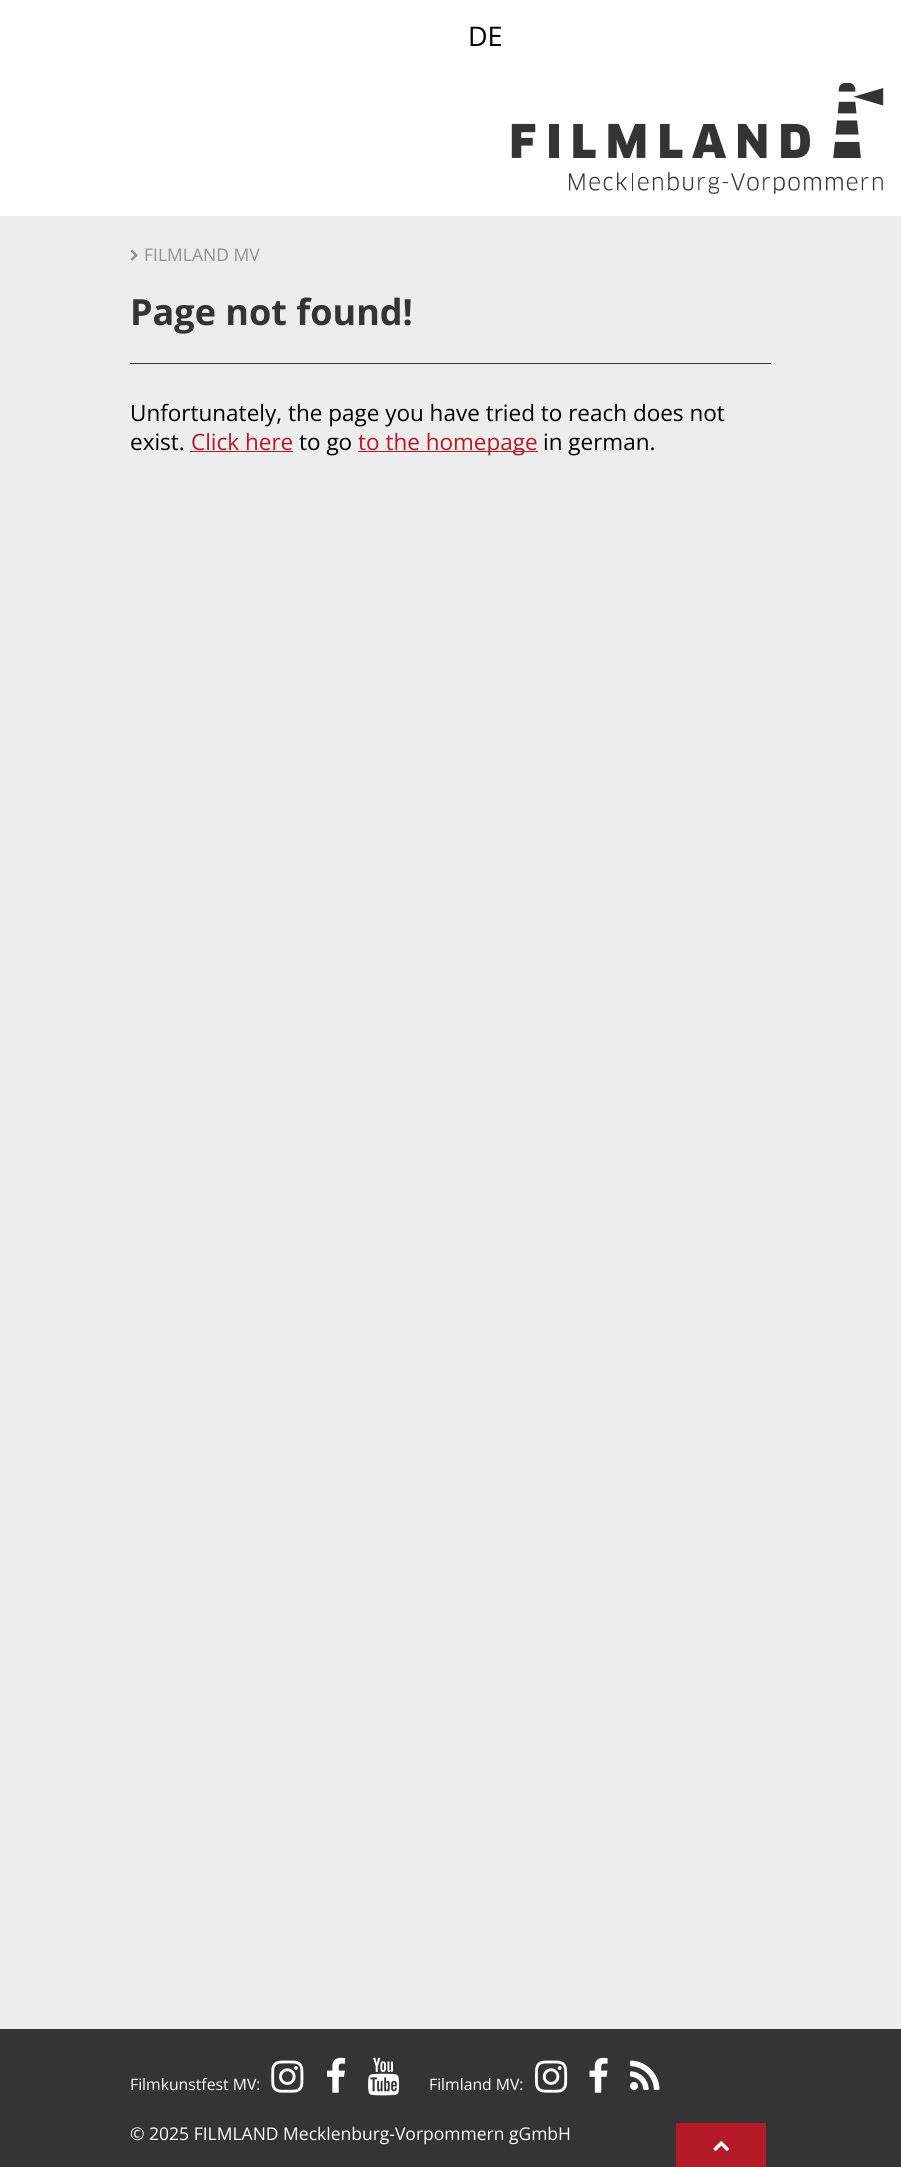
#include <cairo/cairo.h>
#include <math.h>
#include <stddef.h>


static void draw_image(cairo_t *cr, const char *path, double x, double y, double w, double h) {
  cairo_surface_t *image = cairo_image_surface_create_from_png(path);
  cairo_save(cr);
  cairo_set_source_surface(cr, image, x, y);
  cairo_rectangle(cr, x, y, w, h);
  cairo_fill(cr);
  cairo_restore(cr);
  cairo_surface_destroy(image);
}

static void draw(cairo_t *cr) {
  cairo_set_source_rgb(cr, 1, 1, 1);
  cairo_paint(cr);
  draw_image(cr, "images/1.png", 511, 83, 373, 111);
  cairo_set_source_rgb(cr, 237 / 255.0, 237 / 255.0, 237 / 255.0);
  cairo_rectangle(cr, 0, 216, 901, 1813);
  cairo_fill(cr);
  draw_image(cr, "images/2.png", 130, 249, 8, 12);
  cairo_set_source_rgb(cr, 52 / 255.0, 52 / 255.0, 52 / 255.0);
  cairo_rectangle(cr, 130, 363, 641, 1);
  cairo_fill(cr);
  cairo_set_source_rgb(cr, 181 / 255.0, 26 / 255.0, 38 / 255.0);
  cairo_rectangle(cr, 190, 451, 103, 1);
  cairo_fill(cr);
  cairo_rectangle(cr, 358, 451, 180, 1);
  cairo_fill(cr);
  cairo_set_source_rgb(cr, 52 / 255.0, 52 / 255.0, 52 / 255.0);
  cairo_rectangle(cr, 0, 2029, 901, 138);
  cairo_fill(cr);
  draw_image(cr, "images/3.png", 271, 2060, 33, 33);
  draw_image(cr, "images/4.png", 327, 2057, 19, 36);
  draw_image(cr, "images/5.png", 368, 2057, 32, 39);
  draw_image(cr, "images/6.png", 535, 2060, 33, 33);
  draw_image(cr, "images/7.png", 589, 2057, 19, 36);
  draw_image(cr, "images/8.png", 630, 2060, 30, 30);
  cairo_set_source_rgb(cr, 181 / 255.0, 26 / 255.0, 38 / 255.0);
  cairo_rectangle(cr, 676, 2123, 90, 44);
  cairo_fill(cr);
  draw_image(cr, "images/9.png", 713, 2141, 17, 10);
  cairo_select_font_face(cr, "Open Sans", CAIRO_FONT_SLANT_NORMAL, CAIRO_FONT_WEIGHT_NORMAL);
  cairo_set_font_size(cr, 27);
  cairo_set_source_rgb(cr, 0, 0, 0);
  cairo_move_to(cr, 468, 46);
  cairo_show_text(cr, "DE");
  cairo_set_font_size(cr, 17.5);
  cairo_set_source_rgb(cr, 147 / 255.0, 146 / 255.0, 145 / 255.0);
  cairo_move_to(cr, 144, 261);
  cairo_show_text(cr, "FILMLAND MV");
  cairo_select_font_face(cr, "Open Sans", CAIRO_FONT_SLANT_NORMAL, CAIRO_FONT_WEIGHT_BOLD);
  cairo_set_font_size(cr, 36);
  cairo_set_source_rgb(cr, 52 / 255.0, 52 / 255.0, 52 / 255.0);
  cairo_move_to(cr, 130, 325);
  cairo_show_text(cr, "Page not found!");
  cairo_select_font_face(cr, "Open Sans", CAIRO_FONT_SLANT_NORMAL, CAIRO_FONT_WEIGHT_NORMAL);
  cairo_set_font_size(cr, 22.5);
  cairo_set_source_rgb(cr, 0, 0, 0);
  cairo_move_to(cr, 130, 421);
  cairo_show_text(cr, "Unfortunately, the page you have tried to reach does not");
  cairo_move_to(cr, 130, 450);
  cairo_show_text(cr, "exist.");
  cairo_set_source_rgb(cr, 181 / 255.0, 26 / 255.0, 38 / 255.0);
  cairo_move_to(cr, 191, 450);
  cairo_show_text(cr, "Click here");
  cairo_set_source_rgb(cr, 0, 0, 0);
  cairo_move_to(cr, 299, 450);
  cairo_show_text(cr, "to go");
  cairo_set_source_rgb(cr, 181 / 255.0, 26 / 255.0, 38 / 255.0);
  cairo_move_to(cr, 358, 450);
  cairo_show_text(cr, "to the homepage");
  cairo_set_source_rgb(cr, 0, 0, 0);
  cairo_move_to(cr, 543, 450);
  cairo_show_text(cr, "in german.");
  cairo_set_font_size(cr, 15.75);
  cairo_set_source_rgb(cr, 1, 1, 1);
  cairo_move_to(cr, 130, 2090);
  cairo_show_text(cr, "Filmkunstfest MV:");
  cairo_move_to(cr, 429, 2090);
  cairo_show_text(cr, "Filmland MV:");
  cairo_set_font_size(cr, 17.5);
  cairo_move_to(cr, 130, 2140);
  cairo_show_text(cr, "© 2025 FILMLAND Mecklenburg-Vorpommern gGmbH");
}

int main(void) {
  cairo_surface_t *surface = cairo_image_surface_create(CAIRO_FORMAT_RGB24, 901, 2167);
  cairo_t *cr = cairo_create(surface);
  cairo_font_options_t *options = cairo_font_options_create();
  cairo_font_options_set_hint_metrics(options, CAIRO_HINT_METRICS_OFF);
  cairo_font_options_set_hint_style(options, CAIRO_HINT_STYLE_NONE);
  cairo_set_font_options(cr, options);
  cairo_set_miter_limit(cr, 4);
  draw(cr);
  cairo_surface_write_to_png(surface, "out.png");
  cairo_font_options_destroy(options);
  cairo_destroy(cr);
  cairo_surface_destroy(surface);
  return 0;
}
